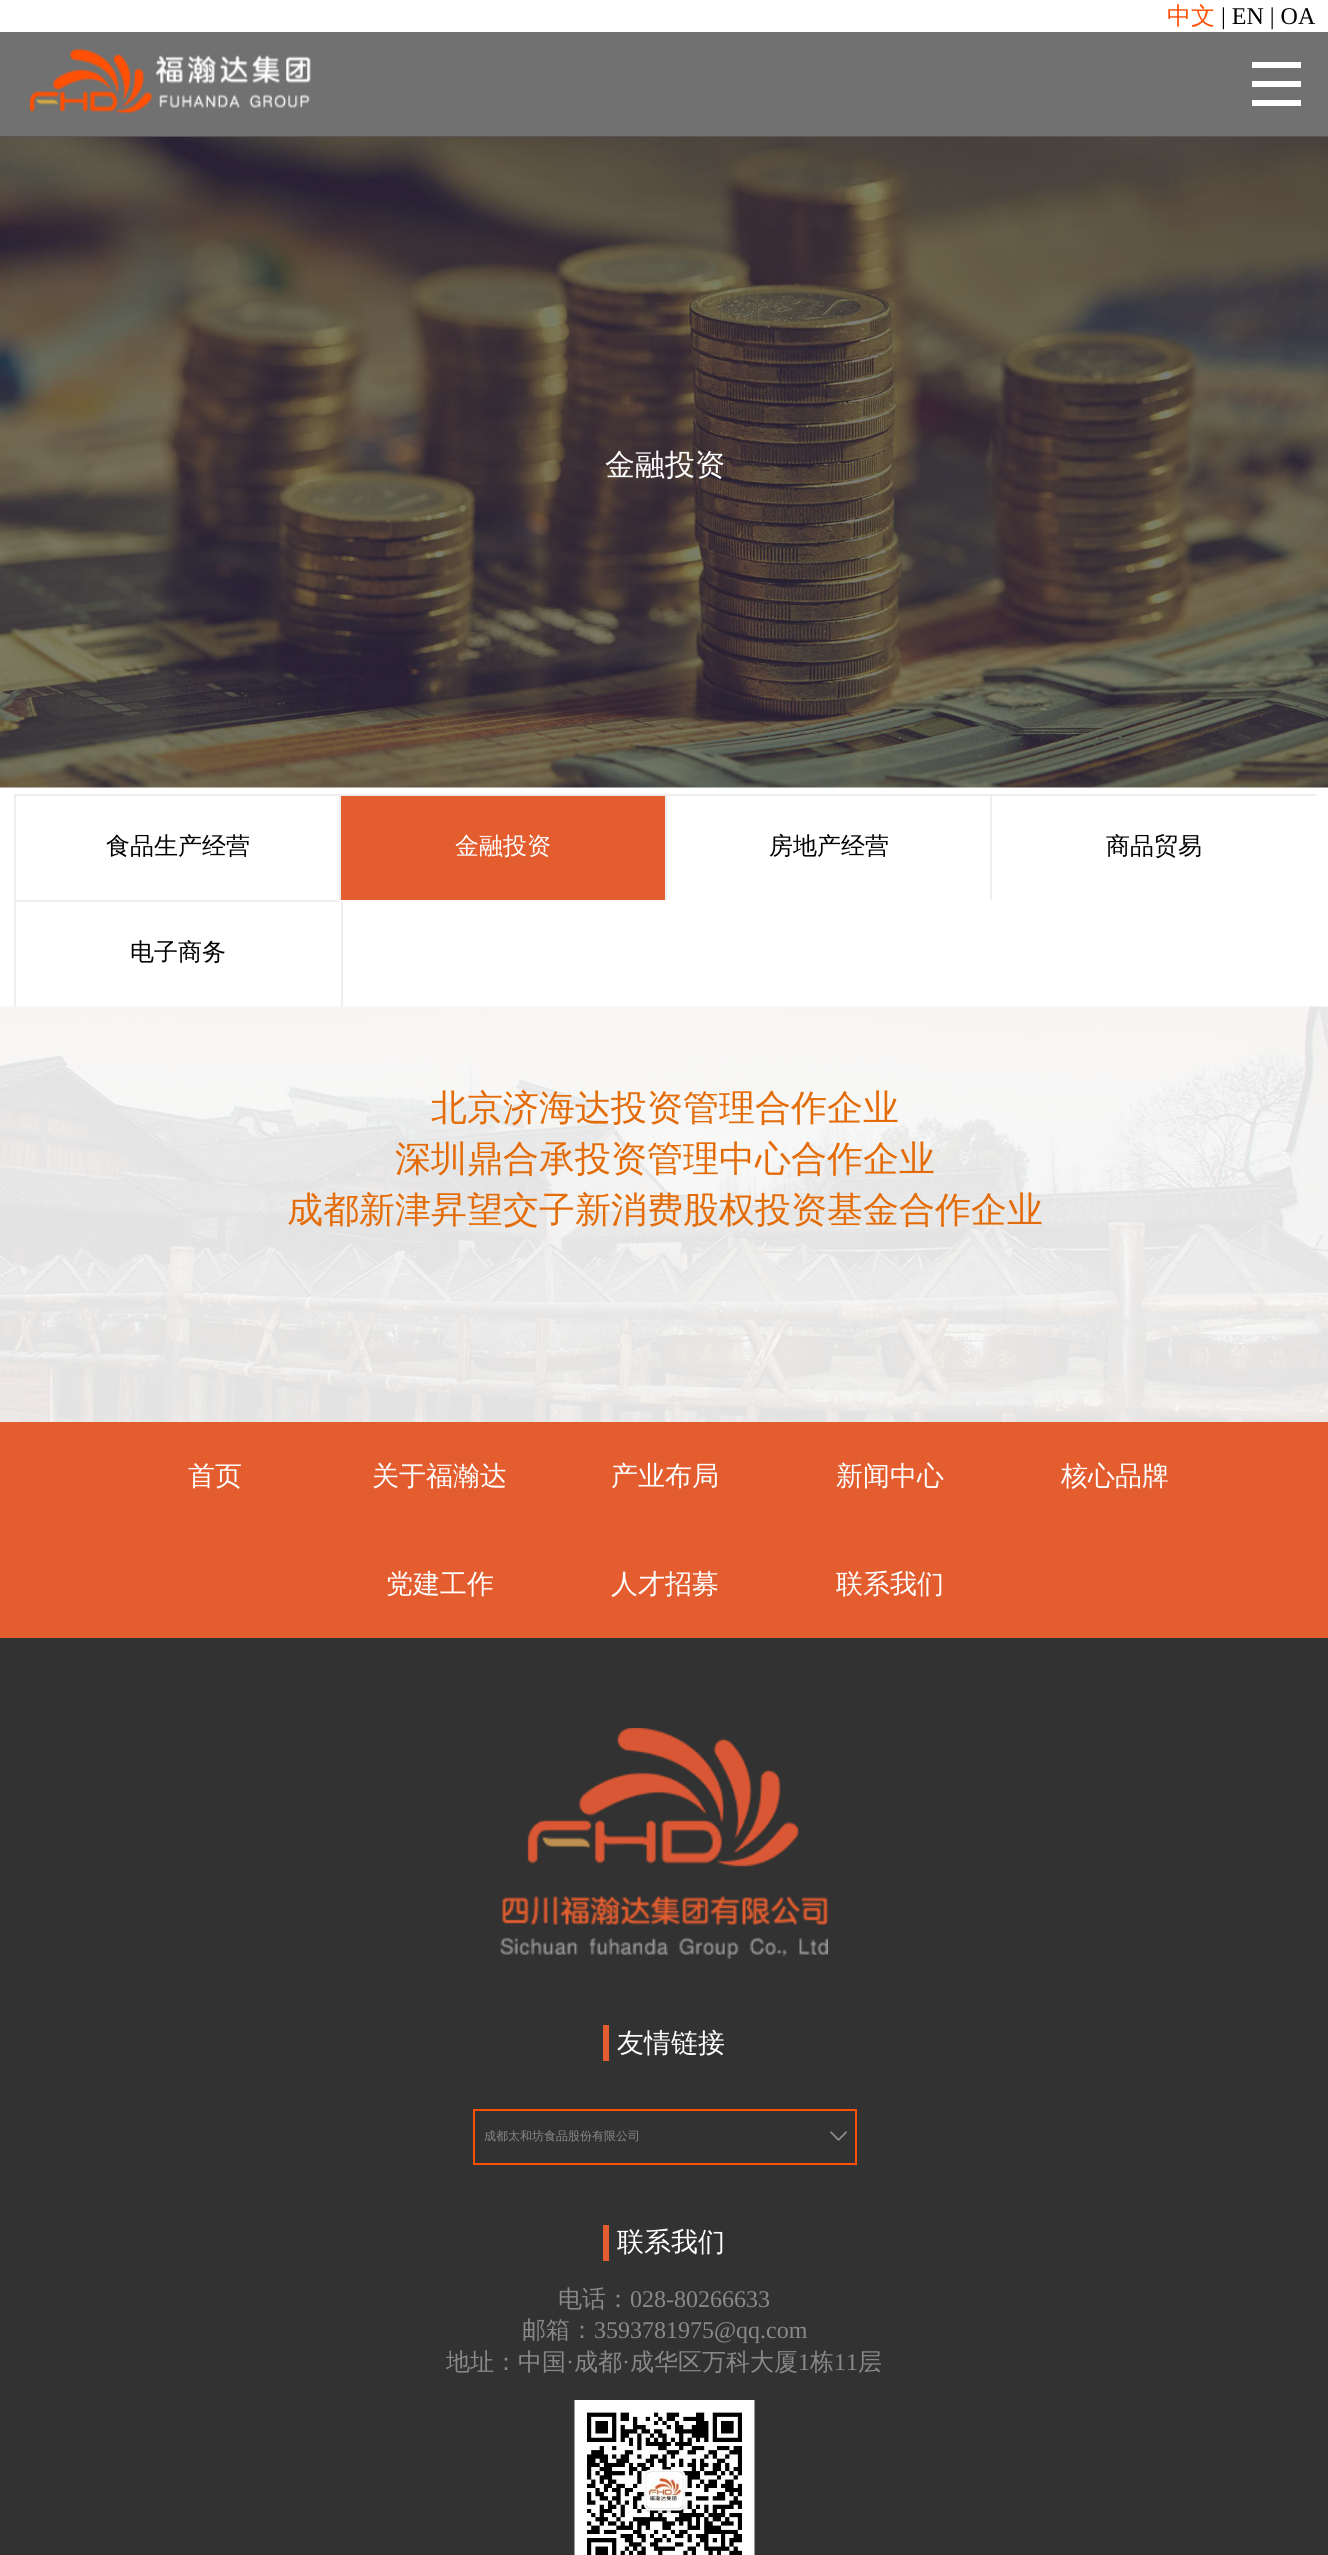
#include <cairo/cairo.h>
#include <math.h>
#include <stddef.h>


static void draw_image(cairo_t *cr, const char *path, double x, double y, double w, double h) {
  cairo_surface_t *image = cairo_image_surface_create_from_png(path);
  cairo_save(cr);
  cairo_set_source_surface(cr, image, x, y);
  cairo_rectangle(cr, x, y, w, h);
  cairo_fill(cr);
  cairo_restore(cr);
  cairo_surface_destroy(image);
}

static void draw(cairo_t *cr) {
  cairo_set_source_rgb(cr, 1, 1, 1);
  cairo_paint(cr);
  draw_image(cr, "images/2.png", 0, 136, 1328, 652);
  cairo_set_source_rgba(cr, 53 / 255.0, 53 / 255.0, 53 / 255.0, 0.7);
  cairo_rectangle(cr, 0, 32, 1328, 105);
  cairo_fill(cr);
  draw_image(cr, "images/1.png", 30, 49, 281, 65);
  cairo_set_source_rgb(cr, 1, 1, 1);
  cairo_new_path(cr);
  cairo_move_to(cr, 1252, 62);
  cairo_line_to(cr, 1301, 62);
  cairo_line_to(cr, 1301, 68);
  cairo_line_to(cr, 1252, 68);
  cairo_close_path(cr);
  cairo_move_to(cr, 1252, 100);
  cairo_line_to(cr, 1301, 100);
  cairo_line_to(cr, 1301, 106);
  cairo_line_to(cr, 1252, 106);
  cairo_close_path(cr);
  cairo_move_to(cr, 1252, 81);
  cairo_line_to(cr, 1301, 81);
  cairo_line_to(cr, 1301, 87);
  cairo_line_to(cr, 1252, 87);
  cairo_close_path(cr);
  cairo_fill(cr);
  cairo_set_source_rgb(cr, 238 / 255.0, 238 / 255.0, 238 / 255.0);
  cairo_rectangle(cr, 14, 794, 1302, 2);
  cairo_fill(cr);
  cairo_rectangle(cr, 14, 795, 2, 105);
  cairo_fill(cr);
  cairo_set_source_rgb(cr, 227 / 255.0, 93 / 255.0, 47 / 255.0);
  cairo_rectangle(cr, 341, 796, 324, 104);
  cairo_fill(cr);
  cairo_set_source_rgb(cr, 238 / 255.0, 238 / 255.0, 238 / 255.0);
  cairo_rectangle(cr, 339, 795, 2, 105);
  cairo_fill(cr);
  cairo_rectangle(cr, 665, 795, 2, 105);
  cairo_fill(cr);
  cairo_rectangle(cr, 990, 795, 2, 105);
  cairo_fill(cr);
  cairo_rectangle(cr, 14, 900, 325, 2);
  cairo_fill(cr);
  draw_image(cr, "images/3.png", 0, 1006, 1328, 416);
  cairo_rectangle(cr, 341, 902, 2, 105);
  cairo_fill(cr);
  cairo_rectangle(cr, 14, 902, 2, 105);
  cairo_fill(cr);
  cairo_set_source_rgb(cr, 227 / 255.0, 93 / 255.0, 47 / 255.0);
  cairo_rectangle(cr, 0, 1422, 1328, 216);
  cairo_fill(cr);
  cairo_set_source_rgb(cr, 50 / 255.0, 50 / 255.0, 50 / 255.0);
  cairo_rectangle(cr, 0, 1638, 1328, 917);
  cairo_fill(cr);
  draw_image(cr, "images/4.png", 499, 1728, 329, 231);
  cairo_set_source_rgb(cr, 227 / 255.0, 93 / 255.0, 47 / 255.0);
  cairo_rectangle(cr, 603, 2025, 6, 36);
  cairo_fill(cr);
  cairo_rectangle(cr, 474, 2110, 382, 54);
  cairo_set_source_rgb(cr, 1, 80 / 255.0, 5 / 255.0);
  cairo_stroke(cr);
  draw_image(cr, "images/5.png", 830, 2131, 17, 10);
  cairo_set_source_rgb(cr, 227 / 255.0, 93 / 255.0, 47 / 255.0);
  cairo_rectangle(cr, 603, 2225, 6, 36);
  cairo_fill(cr);
  draw_image(cr, "images/6.png", 574, 2400, 181, 155);
  cairo_select_font_face(cr, "WenQuanYi Zen Hei Medium", CAIRO_FONT_SLANT_NORMAL, CAIRO_FONT_WEIGHT_NORMAL);
  cairo_set_font_size(cr, 24);
  cairo_set_source_rgb(cr, 1, 80 / 255.0, 5 / 255.0);
  cairo_move_to(cr, 1167, 24);
  cairo_show_text(cr, "中文");
  cairo_select_font_face(cr, "Liberation Serif", CAIRO_FONT_SLANT_NORMAL, CAIRO_FONT_WEIGHT_NORMAL);
  cairo_set_source_rgb(cr, 0, 0, 0);
  cairo_move_to(cr, 1221, 24);
  cairo_show_text(cr, "| EN | OA");
  cairo_select_font_face(cr, "WenQuanYi Zen Hei Medium", CAIRO_FONT_SLANT_NORMAL, CAIRO_FONT_WEIGHT_NORMAL);
  cairo_set_font_size(cr, 30);
  cairo_set_source_rgb(cr, 1, 1, 1);
  cairo_move_to(cr, 605, 475);
  cairo_show_text(cr, "金融投资");
  cairo_set_font_size(cr, 24);
  cairo_set_source_rgb(cr, 0, 0, 0);
  cairo_move_to(cr, 106, 854);
  cairo_show_text(cr, "食品生产经营");
  cairo_set_source_rgb(cr, 1, 1, 1);
  cairo_move_to(cr, 455, 854);
  cairo_show_text(cr, "金融投资");
  cairo_set_source_rgb(cr, 0, 0, 0);
  cairo_move_to(cr, 769, 854);
  cairo_show_text(cr, "房地产经营");
  cairo_move_to(cr, 1106, 854);
  cairo_show_text(cr, "商品贸易");
  cairo_move_to(cr, 130, 960);
  cairo_show_text(cr, "电子商务");
  cairo_set_font_size(cr, 36);
  cairo_set_source_rgb(cr, 227 / 255.0, 108 / 255.0, 9 / 255.0);
  cairo_move_to(cr, 431, 1120);
  cairo_show_text(cr, "北京济海达投资管理合作企业");
  cairo_move_to(cr, 395, 1171);
  cairo_show_text(cr, "深圳鼎合承投资管理中心合作企业");
  cairo_move_to(cr, 287, 1222);
  cairo_show_text(cr, "成都新津昇望交子新消费股权投资基金合作企业");
  cairo_set_font_size(cr, 27);
  cairo_set_source_rgb(cr, 1, 1, 1);
  cairo_move_to(cr, 188, 1485);
  cairo_show_text(cr, "首页");
  cairo_move_to(cr, 372, 1485);
  cairo_show_text(cr, "关于福瀚达");
  cairo_move_to(cr, 611, 1485);
  cairo_show_text(cr, "产业布局");
  cairo_move_to(cr, 836, 1485);
  cairo_show_text(cr, "新闻中心");
  cairo_move_to(cr, 1061, 1485);
  cairo_show_text(cr, "核心品牌");
  cairo_move_to(cr, 386, 1593);
  cairo_show_text(cr, "党建工作");
  cairo_move_to(cr, 611, 1593);
  cairo_show_text(cr, "人才招募");
  cairo_move_to(cr, 836, 1593);
  cairo_show_text(cr, "联系我们");
  cairo_move_to(cr, 617, 2052);
  cairo_show_text(cr, "友情链接");
  cairo_set_font_size(cr, 12);
  cairo_set_source_rgb(cr, 137 / 255.0, 137 / 255.0, 137 / 255.0);
  cairo_move_to(cr, 484, 2140);
  cairo_show_text(cr, "成都太和坊食品股份有限公司");
  cairo_set_font_size(cr, 27);
  cairo_set_source_rgb(cr, 1, 1, 1);
  cairo_move_to(cr, 617, 2251);
  cairo_show_text(cr, "联系我们");
  cairo_set_font_size(cr, 24);
  cairo_set_source_rgb(cr, 137 / 255.0, 137 / 255.0, 137 / 255.0);
  cairo_move_to(cr, 558, 2307);
  cairo_show_text(cr, "电话：");
  cairo_select_font_face(cr, "Liberation Serif", CAIRO_FONT_SLANT_NORMAL, CAIRO_FONT_WEIGHT_NORMAL);
  cairo_move_to(cr, 630, 2307);
  cairo_show_text(cr, "028-80266633");
  cairo_select_font_face(cr, "WenQuanYi Zen Hei Medium", CAIRO_FONT_SLANT_NORMAL, CAIRO_FONT_WEIGHT_NORMAL);
  cairo_move_to(cr, 522, 2338);
  cairo_show_text(cr, "邮箱：");
  cairo_select_font_face(cr, "Liberation Serif", CAIRO_FONT_SLANT_NORMAL, CAIRO_FONT_WEIGHT_NORMAL);
  cairo_move_to(cr, 594, 2338);
  cairo_show_text(cr, "3593781975@qq.com");
  cairo_select_font_face(cr, "WenQuanYi Zen Hei Medium", CAIRO_FONT_SLANT_NORMAL, CAIRO_FONT_WEIGHT_NORMAL);
  cairo_move_to(cr, 446, 2370);
  cairo_show_text(cr, "地址：中国");
  cairo_select_font_face(cr, "Liberation Serif", CAIRO_FONT_SLANT_NORMAL, CAIRO_FONT_WEIGHT_NORMAL);
  cairo_move_to(cr, 566, 2370);
  cairo_show_text(cr, "·");
  cairo_select_font_face(cr, "WenQuanYi Zen Hei Medium", CAIRO_FONT_SLANT_NORMAL, CAIRO_FONT_WEIGHT_NORMAL);
  cairo_move_to(cr, 574, 2370);
  cairo_show_text(cr, "成都");
  cairo_select_font_face(cr, "Liberation Serif", CAIRO_FONT_SLANT_NORMAL, CAIRO_FONT_WEIGHT_NORMAL);
  cairo_move_to(cr, 622, 2370);
  cairo_show_text(cr, "·");
  cairo_select_font_face(cr, "WenQuanYi Zen Hei Medium", CAIRO_FONT_SLANT_NORMAL, CAIRO_FONT_WEIGHT_NORMAL);
  cairo_move_to(cr, 630, 2370);
  cairo_show_text(cr, "成华区万科大厦");
  cairo_select_font_face(cr, "Liberation Serif", CAIRO_FONT_SLANT_NORMAL, CAIRO_FONT_WEIGHT_NORMAL);
  cairo_move_to(cr, 798, 2370);
  cairo_show_text(cr, "1");
  cairo_select_font_face(cr, "WenQuanYi Zen Hei Medium", CAIRO_FONT_SLANT_NORMAL, CAIRO_FONT_WEIGHT_NORMAL);
  cairo_move_to(cr, 810, 2370);
  cairo_show_text(cr, "栋");
  cairo_select_font_face(cr, "Liberation Serif", CAIRO_FONT_SLANT_NORMAL, CAIRO_FONT_WEIGHT_NORMAL);
  cairo_move_to(cr, 834, 2370);
  cairo_show_text(cr, "11");
  cairo_select_font_face(cr, "WenQuanYi Zen Hei Medium", CAIRO_FONT_SLANT_NORMAL, CAIRO_FONT_WEIGHT_NORMAL);
  cairo_move_to(cr, 858, 2370);
  cairo_show_text(cr, "层");
}

int main(void) {
  cairo_surface_t *surface = cairo_image_surface_create(CAIRO_FORMAT_RGB24, 1328, 2555);
  cairo_t *cr = cairo_create(surface);
  cairo_font_options_t *options = cairo_font_options_create();
  cairo_font_options_set_hint_metrics(options, CAIRO_HINT_METRICS_OFF);
  cairo_font_options_set_hint_style(options, CAIRO_HINT_STYLE_NONE);
  cairo_set_font_options(cr, options);
  cairo_set_miter_limit(cr, 4);
  draw(cr);
  cairo_surface_write_to_png(surface, "out.png");
  cairo_font_options_destroy(options);
  cairo_destroy(cr);
  cairo_surface_destroy(surface);
  return 0;
}
